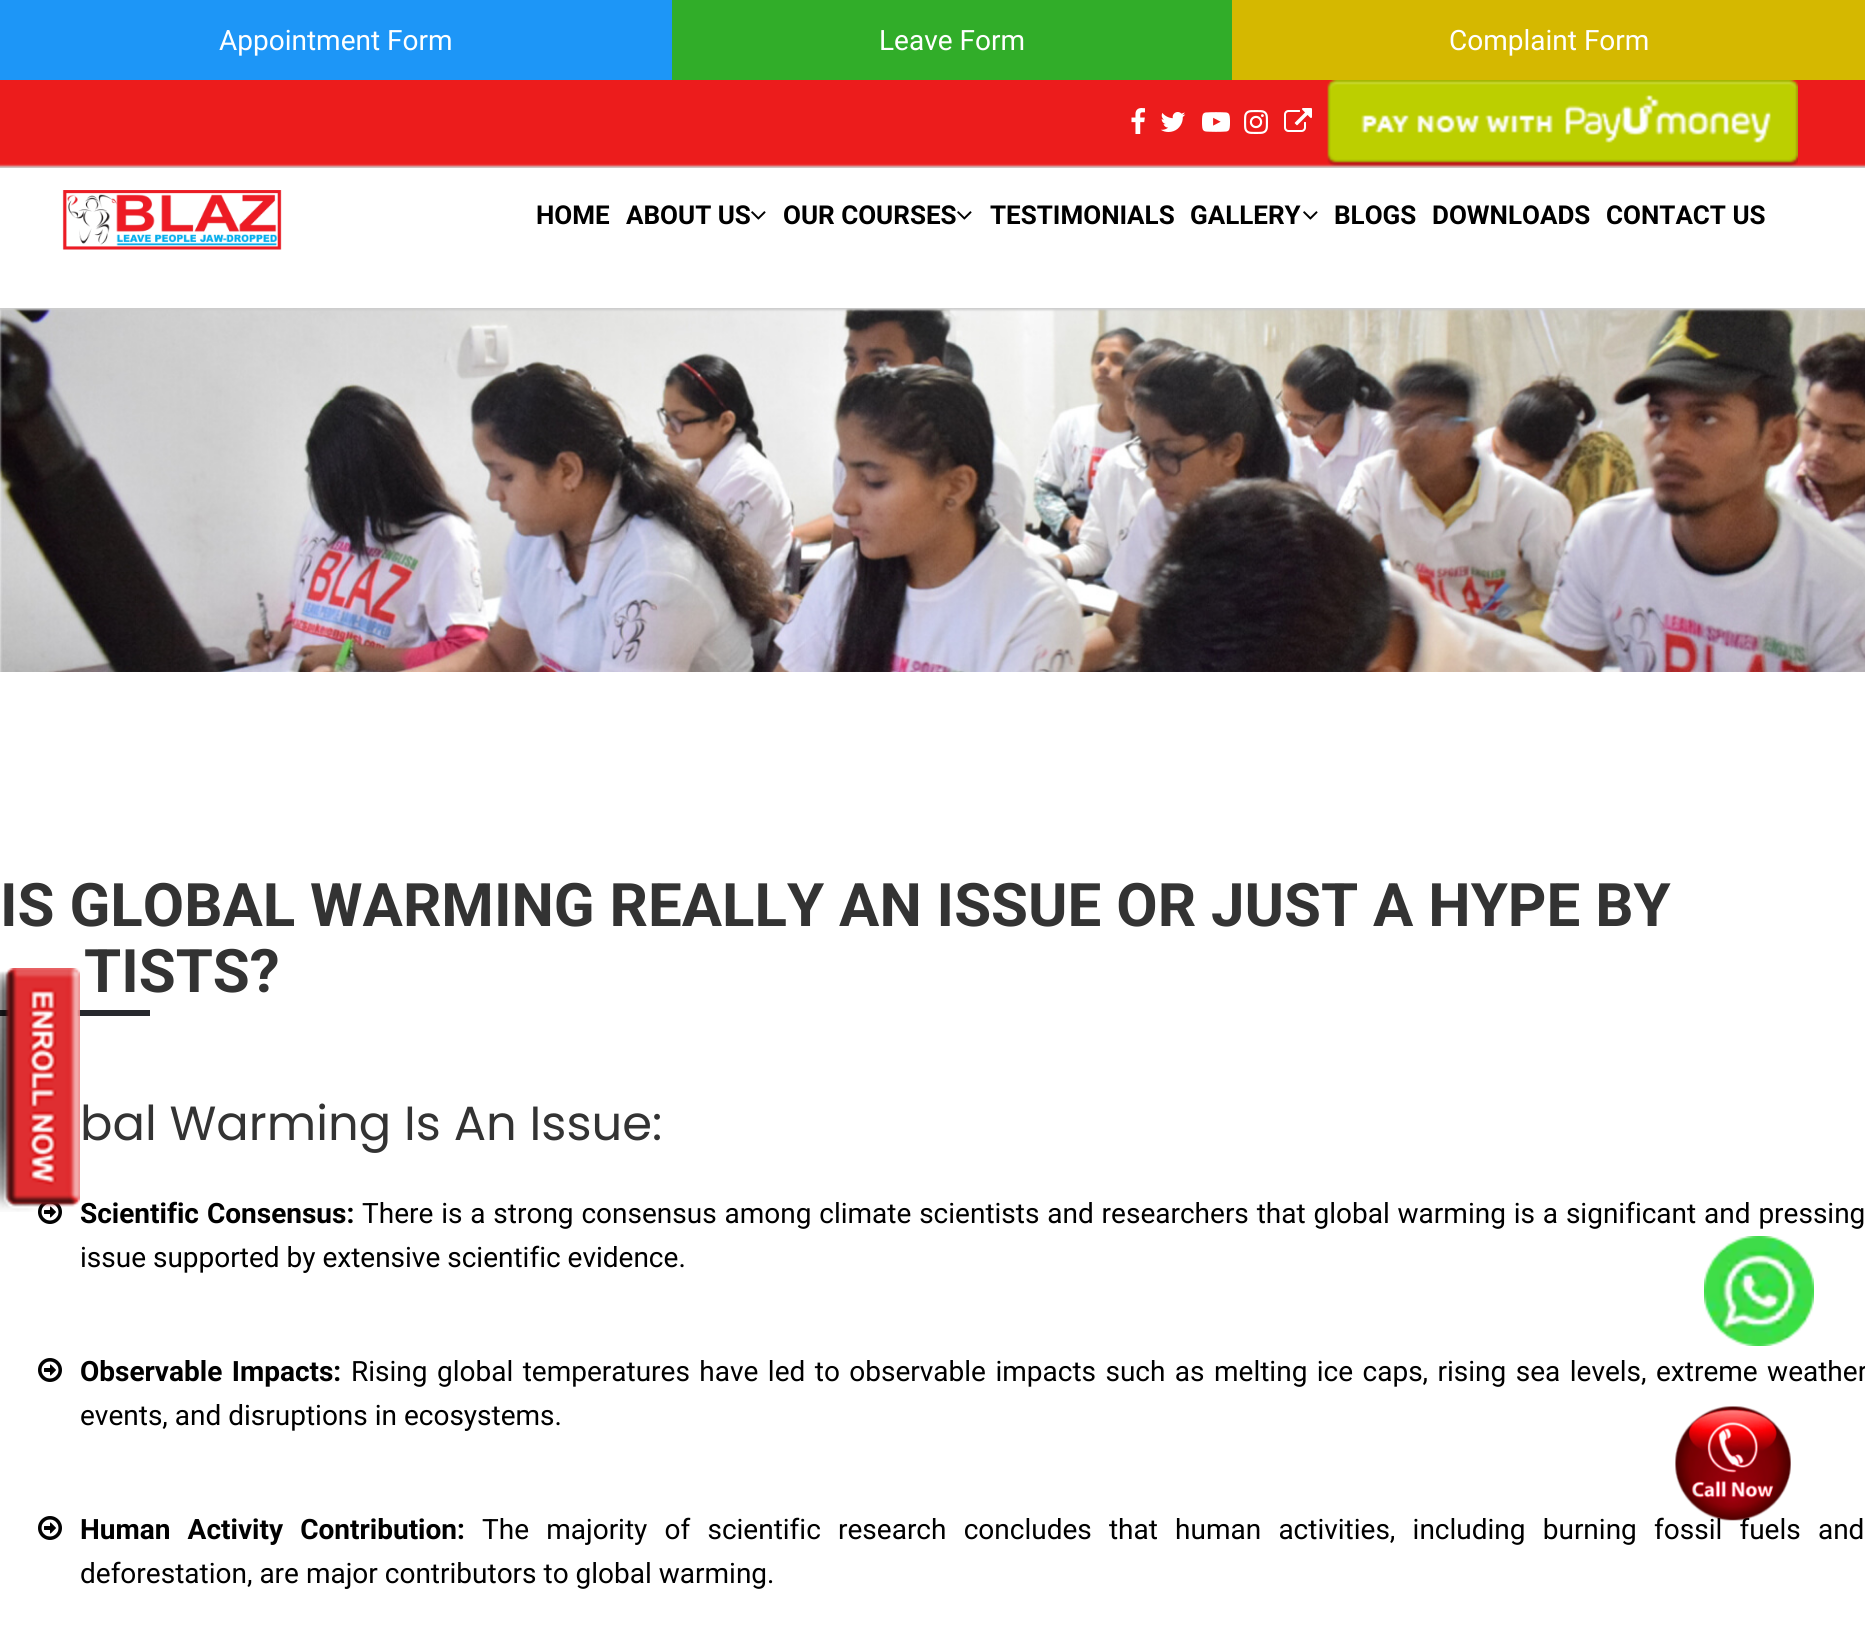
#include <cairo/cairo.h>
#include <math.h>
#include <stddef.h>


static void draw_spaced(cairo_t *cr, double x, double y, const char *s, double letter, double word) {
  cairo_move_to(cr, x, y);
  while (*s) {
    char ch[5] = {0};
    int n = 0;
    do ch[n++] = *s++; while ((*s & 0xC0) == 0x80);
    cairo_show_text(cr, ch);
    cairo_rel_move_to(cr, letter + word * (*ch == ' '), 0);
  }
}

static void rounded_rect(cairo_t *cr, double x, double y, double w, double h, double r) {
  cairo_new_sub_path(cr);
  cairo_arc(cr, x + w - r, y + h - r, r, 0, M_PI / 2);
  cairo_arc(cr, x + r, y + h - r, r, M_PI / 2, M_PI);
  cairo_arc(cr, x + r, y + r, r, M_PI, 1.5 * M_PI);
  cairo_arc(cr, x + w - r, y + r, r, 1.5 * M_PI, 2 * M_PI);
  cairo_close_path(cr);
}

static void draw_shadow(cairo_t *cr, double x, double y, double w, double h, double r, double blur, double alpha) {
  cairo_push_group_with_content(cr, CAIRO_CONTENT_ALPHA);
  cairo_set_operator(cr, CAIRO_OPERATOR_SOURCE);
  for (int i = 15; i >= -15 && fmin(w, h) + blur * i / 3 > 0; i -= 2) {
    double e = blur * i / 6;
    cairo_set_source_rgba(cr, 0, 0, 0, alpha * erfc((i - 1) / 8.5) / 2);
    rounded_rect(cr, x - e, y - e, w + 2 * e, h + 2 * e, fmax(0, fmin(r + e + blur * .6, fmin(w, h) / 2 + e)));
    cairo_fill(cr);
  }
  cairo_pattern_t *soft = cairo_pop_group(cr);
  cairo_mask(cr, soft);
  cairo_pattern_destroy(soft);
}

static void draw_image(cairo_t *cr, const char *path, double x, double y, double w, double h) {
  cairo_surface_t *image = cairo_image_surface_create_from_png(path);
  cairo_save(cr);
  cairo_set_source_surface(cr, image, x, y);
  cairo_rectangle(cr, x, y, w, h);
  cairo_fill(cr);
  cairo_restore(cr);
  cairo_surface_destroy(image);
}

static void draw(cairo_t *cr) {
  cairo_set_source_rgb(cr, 1, 1, 1);
  cairo_paint(cr);
  cairo_set_source_rgb(cr, 29 / 255.0, 150 / 255.0, 247 / 255.0);
  cairo_rectangle(cr, 0, 0, 672, 80);
  cairo_fill(cr);
  cairo_set_source_rgb(cr, 49 / 255.0, 173 / 255.0, 41 / 255.0);
  cairo_rectangle(cr, 672, 0, 560, 80);
  cairo_fill(cr);
  cairo_set_source_rgb(cr, 213 / 255.0, 184 / 255.0, 0);
  cairo_rectangle(cr, 1232, 0, 633, 80);
  cairo_fill(cr);
  cairo_set_source_rgb(cr, 236 / 255.0, 28 / 255.0, 28 / 255.0);
  cairo_rectangle(cr, 0, 80, 1865, 88);
  cairo_fill(cr);
  draw_image(cr, "images/1.png", 1131, 108, 14, 26);
  draw_image(cr, "images/2.png", 1160, 112, 26, 20);
  draw_image(cr, "images/3.png", 1202, 112, 28, 20);
  draw_image(cr, "images/4.png", 1244, 110, 24, 24);
  draw_image(cr, "images/5.png", 1284, 108, 28, 24);
  draw_image(cr, "images/6.png", 1327, 80, 471, 87);
  draw_image(cr, "images/9.png", 0, 308, 1865, 364);
  cairo_save(cr);
  cairo_set_fill_rule(cr, CAIRO_FILL_RULE_EVEN_ODD);
  cairo_new_path(cr);
  cairo_move_to(cr, 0, 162);
  cairo_line_to(cr, 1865, 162);
  cairo_line_to(cr, 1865, 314);
  cairo_line_to(cr, 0, 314);
  cairo_close_path(cr);
  cairo_move_to(cr, 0, 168);
  cairo_line_to(cr, 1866, 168);
  cairo_line_to(cr, 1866, 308);
  cairo_line_to(cr, 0, 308);
  cairo_close_path(cr);
  cairo_clip(cr);
  cairo_set_source_rgb(cr, 204 / 255.0, 204 / 255.0, 204 / 255.0);
  draw_shadow(cr, -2, 166, 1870, 144, 0, 1, 1);
  cairo_restore(cr);
  draw_image(cr, "images/7.png", 62, 190, 220, 60);
  draw_image(cr, "images/8.png", 751, 211, 15, 9);
  draw_image(cr, "images/8.png", 957, 211, 15, 9);
  draw_image(cr, "images/8.png", 1303, 211, 15, 9);
  cairo_set_source_rgb(cr, 39 / 255.0, 40 / 255.0, 45 / 255.0);
  cairo_rectangle(cr, 0, 1010, 150, 6);
  cairo_fill(cr);
  draw_image(cr, "images/10.png", 38, 1203, 24, 21);
  draw_image(cr, "images/11.png", 38, 1358, 24, 24);
  draw_image(cr, "images/11.png", 38, 1516, 24, 24);
  draw_image(cr, "images/12.png", 0, 968, 80, 244);
  draw_image(cr, "images/13.png", 1704, 1236, 110, 110);
  cairo_select_font_face(cr, "Roboto", CAIRO_FONT_SLANT_NORMAL, CAIRO_FONT_WEIGHT_NORMAL);
  cairo_set_font_size(cr, 28);
  cairo_set_source_rgb(cr, 1, 1, 1);
  cairo_move_to(cr, 219, 50);
  cairo_show_text(cr, "Appointment Form");
  cairo_move_to(cr, 879, 50);
  cairo_show_text(cr, "Leave Form");
  cairo_move_to(cr, 1449, 50);
  cairo_show_text(cr, "Complaint Form");
  cairo_select_font_face(cr, "Roboto", CAIRO_FONT_SLANT_NORMAL, CAIRO_FONT_WEIGHT_BOLD);
  cairo_set_font_size(cr, 26);
  cairo_set_source_rgb(cr, 0, 0, 0);
  cairo_move_to(cr, 536, 224);
  cairo_show_text(cr, "HOME");
  cairo_move_to(cr, 626, 224);
  cairo_show_text(cr, "ABOUT US");
  cairo_move_to(cr, 783, 224);
  cairo_show_text(cr, "OUR COURSES");
  cairo_move_to(cr, 990, 224);
  cairo_show_text(cr, "TESTIMONIALS");
  cairo_move_to(cr, 1190, 224);
  cairo_show_text(cr, "GALLERY");
  cairo_move_to(cr, 1334, 224);
  cairo_show_text(cr, "BLOGS");
  cairo_move_to(cr, 1432, 224);
  cairo_show_text(cr, "DOWNLOADS");
  cairo_move_to(cr, 1606, 224);
  cairo_show_text(cr, "CONTACT US");
  cairo_set_font_size(cr, 60);
  cairo_set_source_rgb(cr, 51 / 255.0, 51 / 255.0, 51 / 255.0);
  cairo_move_to(cr, 0, 926);
  cairo_show_text(cr, "IS GLOBAL WARMING REALLY AN ISSUE OR JUST A HYPE BY");
  cairo_move_to(cr, 84, 992);
  cairo_show_text(cr, "TISTS?");
  cairo_select_font_face(cr, "Poppins", CAIRO_FONT_SLANT_NORMAL, CAIRO_FONT_WEIGHT_NORMAL);
  cairo_set_font_size(cr, 48);
  cairo_move_to(cr, 80, 1140);
  cairo_show_text(cr, "bal Warming Is An Issue:");
  cairo_select_font_face(cr, "Roboto", CAIRO_FONT_SLANT_NORMAL, CAIRO_FONT_WEIGHT_BOLD);
  cairo_set_font_size(cr, 28);
  cairo_set_source_rgb(cr, 0, 0, 0);
  draw_spaced(cr, 80, 1223, "Scientific Consensus:", 0, 1);
  cairo_select_font_face(cr, "Roboto", CAIRO_FONT_SLANT_NORMAL, CAIRO_FONT_WEIGHT_NORMAL);
  draw_spaced(cr, 362, 1223, "There is a strong consensus among climate scientists and researchers that global warming is a significant and pressing", 0, 0.9);
  cairo_move_to(cr, 80, 1267);
  cairo_show_text(cr, "issue supported by extensive scientific evidence.");
  cairo_select_font_face(cr, "Roboto", CAIRO_FONT_SLANT_NORMAL, CAIRO_FONT_WEIGHT_BOLD);
  draw_spaced(cr, 80, 1381, "Observable Impacts:", 0, 2.5);
  cairo_select_font_face(cr, "Roboto", CAIRO_FONT_SLANT_NORMAL, CAIRO_FONT_WEIGHT_NORMAL);
  draw_spaced(cr, 351, 1381, "Rising global temperatures have led to observable impacts such as melting ice caps, rising sea levels, extreme weather", 0, 2.5);
  cairo_move_to(cr, 80, 1425);
  cairo_show_text(cr, "events, and disruptions in ecosystems.");
  cairo_select_font_face(cr, "Roboto", CAIRO_FONT_SLANT_NORMAL, CAIRO_FONT_WEIGHT_BOLD);
  draw_spaced(cr, 80, 1539, "Human Activity Contribution:", 0, 10.25);
  cairo_select_font_face(cr, "Roboto", CAIRO_FONT_SLANT_NORMAL, CAIRO_FONT_WEIGHT_NORMAL);
  draw_spaced(cr, 482, 1539, "The majority of scientific research concludes that human activities, including burning fossil fuels and", 0, 10.25);
  cairo_move_to(cr, 80, 1583);
  cairo_show_text(cr, "deforestation, are major contributors to global warming.");
  draw_image(cr, "images/14.png", 1675, 1406, 116, 115);
}

int main(void) {
  cairo_surface_t *surface = cairo_image_surface_create(CAIRO_FORMAT_RGB24, 1865, 1641);
  cairo_t *cr = cairo_create(surface);
  cairo_font_options_t *options = cairo_font_options_create();
  cairo_font_options_set_hint_metrics(options, CAIRO_HINT_METRICS_OFF);
  cairo_font_options_set_hint_style(options, CAIRO_HINT_STYLE_NONE);
  cairo_set_font_options(cr, options);
  cairo_set_miter_limit(cr, 4);
  draw(cr);
  cairo_surface_write_to_png(surface, "out.png");
  cairo_font_options_destroy(options);
  cairo_destroy(cr);
  cairo_surface_destroy(surface);
  return 0;
}
